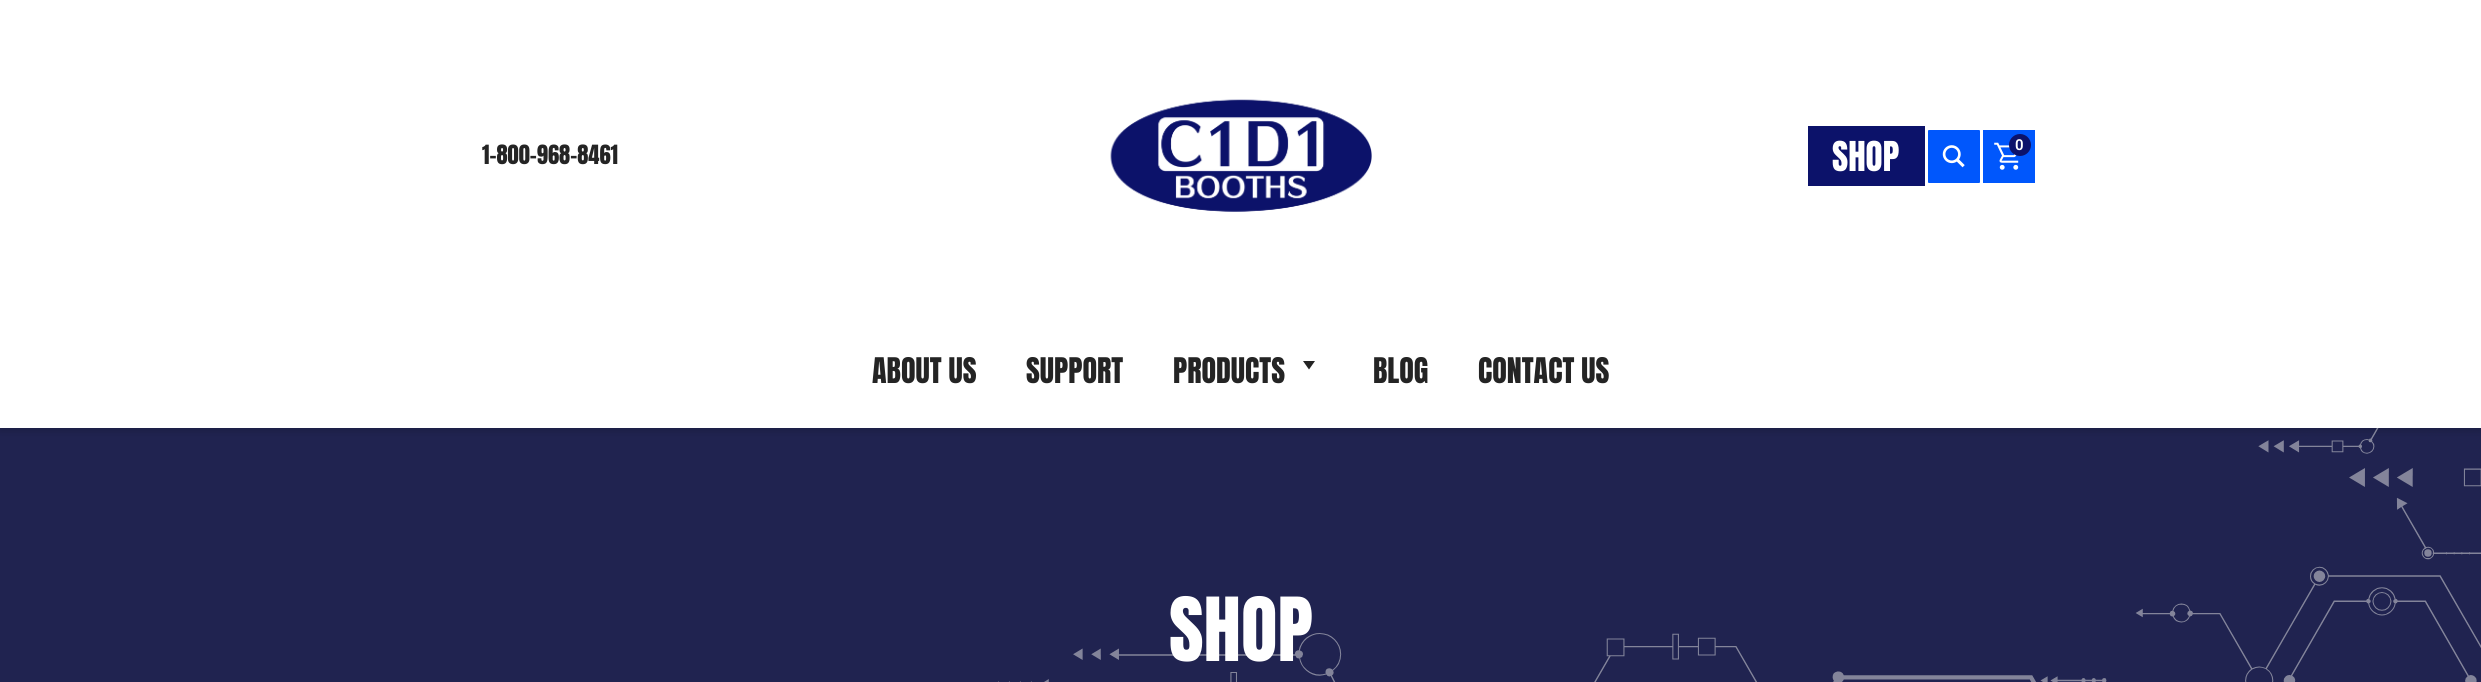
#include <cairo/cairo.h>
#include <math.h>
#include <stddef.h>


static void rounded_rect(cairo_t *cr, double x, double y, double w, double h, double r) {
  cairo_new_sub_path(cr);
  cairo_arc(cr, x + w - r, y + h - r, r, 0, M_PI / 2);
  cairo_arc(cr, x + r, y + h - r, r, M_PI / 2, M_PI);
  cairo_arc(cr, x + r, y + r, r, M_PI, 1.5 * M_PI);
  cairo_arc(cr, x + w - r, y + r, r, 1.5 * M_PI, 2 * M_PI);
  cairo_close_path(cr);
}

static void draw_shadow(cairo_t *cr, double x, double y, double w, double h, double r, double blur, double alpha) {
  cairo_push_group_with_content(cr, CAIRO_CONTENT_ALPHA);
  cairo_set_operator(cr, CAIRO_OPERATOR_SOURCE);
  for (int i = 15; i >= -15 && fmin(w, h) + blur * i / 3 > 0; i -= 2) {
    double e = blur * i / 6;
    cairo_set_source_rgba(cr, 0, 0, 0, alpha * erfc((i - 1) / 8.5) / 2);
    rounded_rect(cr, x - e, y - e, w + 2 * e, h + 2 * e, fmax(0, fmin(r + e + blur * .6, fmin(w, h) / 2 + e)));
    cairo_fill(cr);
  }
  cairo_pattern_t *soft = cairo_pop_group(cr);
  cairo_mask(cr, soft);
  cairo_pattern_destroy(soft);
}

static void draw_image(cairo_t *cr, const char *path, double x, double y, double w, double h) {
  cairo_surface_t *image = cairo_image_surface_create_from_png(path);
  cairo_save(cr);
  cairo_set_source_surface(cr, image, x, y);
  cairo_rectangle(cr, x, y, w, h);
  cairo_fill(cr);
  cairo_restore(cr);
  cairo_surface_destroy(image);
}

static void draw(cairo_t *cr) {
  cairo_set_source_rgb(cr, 1, 1, 1);
  cairo_paint(cr);
  cairo_set_source_rgb(cr, 32 / 255.0, 35 / 255.0, 80 / 255.0);
  cairo_rectangle(cr, 0, 428, 2481, 254);
  cairo_fill(cr);
  cairo_save(cr);
  cairo_set_fill_rule(cr, CAIRO_FILL_RULE_EVEN_ODD);
  cairo_new_path(cr);
  cairo_move_to(cr, 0, 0);
  cairo_line_to(cr, 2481, 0);
  cairo_line_to(cr, 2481, 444);
  cairo_line_to(cr, 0, 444);
  cairo_close_path(cr);
  cairo_move_to(cr, 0, 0);
  cairo_line_to(cr, 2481, 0);
  cairo_line_to(cr, 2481, 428);
  cairo_line_to(cr, 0, 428);
  cairo_close_path(cr);
  cairo_clip(cr);
  cairo_set_source_rgb(cr, 0, 0, 0);
  draw_shadow(cr, 0, 4, 2481, 427, 0, 4, 0.16);
  cairo_restore(cr);
  draw_image(cr, "images/1.png", 1110, 99, 262, 113);
  cairo_set_source_rgb(cr, 12 / 255.0, 18 / 255.0, 106 / 255.0);
  cairo_rectangle(cr, 1808, 126, 117, 60);
  cairo_fill(cr);
  cairo_set_source_rgb(cr, 0, 87 / 255.0, 252 / 255.0);
  rounded_rect(cr, 1928, 130, 52, 53, 1);
  cairo_fill(cr);
  draw_image(cr, "images/2.png", 1942, 145, 23, 23);
  cairo_rectangle(cr, 1983, 130, 52, 53);
  cairo_fill(cr);
  draw_image(cr, "images/3.png", 1994, 142, 25, 28);
  cairo_set_source_rgb(cr, 12 / 255.0, 18 / 255.0, 106 / 255.0);
  cairo_arc(cr, 2020, 145, 11, 0, 2 * M_PI);
  cairo_fill(cr);
  cairo_set_source_rgb(cr, 36 / 255.0, 36 / 255.0, 36 / 255.0);
  cairo_new_path(cr);
  cairo_move_to(cr, 1315, 361);
  cairo_line_to(cr, 1309, 369.5);
  cairo_line_to(cr, 1303, 361);
  cairo_close_path(cr);
  cairo_fill(cr);
  draw_image(cr, "images/4.png", 998, 428, 1483, 254);
  cairo_select_font_face(cr, "Anton", CAIRO_FONT_SLANT_NORMAL, CAIRO_FONT_WEIGHT_NORMAL);
  cairo_set_font_size(cr, 22.5);
  cairo_move_to(cr, 482, 164);
  cairo_show_text(cr, "1-800-968-8461");
  cairo_set_font_size(cr, 35);
  cairo_set_source_rgb(cr, 1, 1, 1);
  cairo_move_to(cr, 1832, 171);
  cairo_show_text(cr, "SHOP");
  cairo_select_font_face(cr, "Roboto SemiBold", CAIRO_FONT_SLANT_NORMAL, CAIRO_FONT_WEIGHT_NORMAL);
  cairo_set_font_size(cr, 15);
  cairo_move_to(cr, 2015, 150);
  cairo_show_text(cr, "0");
  cairo_select_font_face(cr, "Anton", CAIRO_FONT_SLANT_NORMAL, CAIRO_FONT_WEIGHT_NORMAL);
  cairo_set_font_size(cr, 30);
  cairo_set_source_rgb(cr, 36 / 255.0, 36 / 255.0, 36 / 255.0);
  cairo_move_to(cr, 872, 383);
  cairo_show_text(cr, "ABOUT US");
  cairo_move_to(cr, 1026, 383);
  cairo_show_text(cr, "SUPPORT");
  cairo_move_to(cr, 1173, 383);
  cairo_show_text(cr, "PRODUCTS");
  cairo_move_to(cr, 1373, 383);
  cairo_show_text(cr, "BLOG");
  cairo_move_to(cr, 1478, 383);
  cairo_show_text(cr, "CONTACT US");
  cairo_set_font_size(cr, 75);
  cairo_set_source_rgb(cr, 1, 1, 1);
  cairo_move_to(cr, 1169, 661);
  cairo_show_text(cr, "SHOP");
}

int main(void) {
  cairo_surface_t *surface = cairo_image_surface_create(CAIRO_FORMAT_RGB24, 2481, 682);
  cairo_t *cr = cairo_create(surface);
  cairo_font_options_t *options = cairo_font_options_create();
  cairo_font_options_set_hint_metrics(options, CAIRO_HINT_METRICS_OFF);
  cairo_font_options_set_hint_style(options, CAIRO_HINT_STYLE_NONE);
  cairo_set_font_options(cr, options);
  cairo_set_miter_limit(cr, 4);
  draw(cr);
  cairo_surface_write_to_png(surface, "out.png");
  cairo_font_options_destroy(options);
  cairo_destroy(cr);
  cairo_surface_destroy(surface);
  return 0;
}
